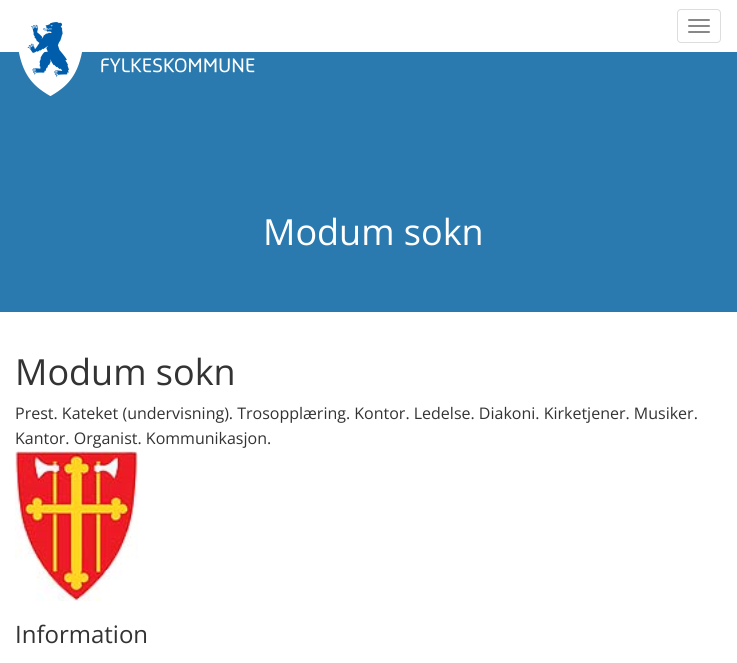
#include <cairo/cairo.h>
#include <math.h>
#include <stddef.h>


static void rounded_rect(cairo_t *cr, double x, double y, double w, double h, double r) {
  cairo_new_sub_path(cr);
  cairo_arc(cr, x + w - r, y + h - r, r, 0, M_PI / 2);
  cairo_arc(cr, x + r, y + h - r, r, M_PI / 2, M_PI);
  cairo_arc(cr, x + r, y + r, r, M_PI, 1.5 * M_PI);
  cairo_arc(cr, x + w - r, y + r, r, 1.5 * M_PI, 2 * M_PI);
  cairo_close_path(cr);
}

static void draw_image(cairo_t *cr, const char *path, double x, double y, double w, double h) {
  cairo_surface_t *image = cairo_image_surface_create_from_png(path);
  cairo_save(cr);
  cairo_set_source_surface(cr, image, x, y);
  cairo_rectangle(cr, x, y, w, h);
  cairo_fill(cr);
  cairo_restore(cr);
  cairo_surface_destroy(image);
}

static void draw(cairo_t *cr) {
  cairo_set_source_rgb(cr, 1, 1, 1);
  cairo_paint(cr);
  cairo_set_source_rgb(cr, 42 / 255.0, 122 / 255.0, 175 / 255.0);
  cairo_rectangle(cr, 0, 52, 737, 260);
  cairo_fill(cr);
  draw_image(cr, "images/1.png", 18, 22, 237, 74);
  rounded_rect(cr, 677.5, 9.5, 43, 33, 3.5);
  cairo_set_source_rgb(cr, 221 / 255.0, 221 / 255.0, 221 / 255.0);
  cairo_set_line_width(cr, 1);
  cairo_stroke(cr);
  cairo_set_source_rgb(cr, 136 / 255.0, 136 / 255.0, 136 / 255.0);
  rounded_rect(cr, 688, 19, 22, 2, 1);
  cairo_fill(cr);
  rounded_rect(cr, 688, 25, 22, 2, 1);
  cairo_fill(cr);
  rounded_rect(cr, 688, 31, 22, 2, 1);
  cairo_fill(cr);
  draw_image(cr, "images/2.png", 15, 451, 123, 150);
  cairo_select_font_face(cr, "Open Sans", CAIRO_FONT_SLANT_NORMAL, CAIRO_FONT_WEIGHT_NORMAL);
  cairo_set_font_size(cr, 36);
  cairo_set_source_rgb(cr, 1, 1, 1);
  cairo_move_to(cr, 263, 245);
  cairo_show_text(cr, "Modum sokn");
  cairo_set_source_rgb(cr, 51 / 255.0, 51 / 255.0, 51 / 255.0);
  cairo_move_to(cr, 15, 385);
  cairo_show_text(cr, "Modum sokn");
  cairo_set_font_size(cr, 16);
  cairo_move_to(cr, 15, 419);
  cairo_show_text(cr, "Prest. Kateket (undervisning). Trosopplæring. Kontor. Ledelse. Diakoni. Kirketjener. Musiker.");
  cairo_move_to(cr, 15, 444);
  cairo_show_text(cr, "Kantor. Organist. Kommunikasjon.");
  cairo_set_font_size(cr, 24);
  cairo_move_to(cr, 15, 643);
  cairo_show_text(cr, "Information");
}

int main(void) {
  cairo_surface_t *surface = cairo_image_surface_create(CAIRO_FORMAT_RGB24, 737, 663);
  cairo_t *cr = cairo_create(surface);
  cairo_font_options_t *options = cairo_font_options_create();
  cairo_font_options_set_hint_metrics(options, CAIRO_HINT_METRICS_OFF);
  cairo_font_options_set_hint_style(options, CAIRO_HINT_STYLE_NONE);
  cairo_set_font_options(cr, options);
  cairo_set_miter_limit(cr, 4);
  draw(cr);
  cairo_surface_write_to_png(surface, "out.png");
  cairo_font_options_destroy(options);
  cairo_destroy(cr);
  cairo_surface_destroy(surface);
  return 0;
}
